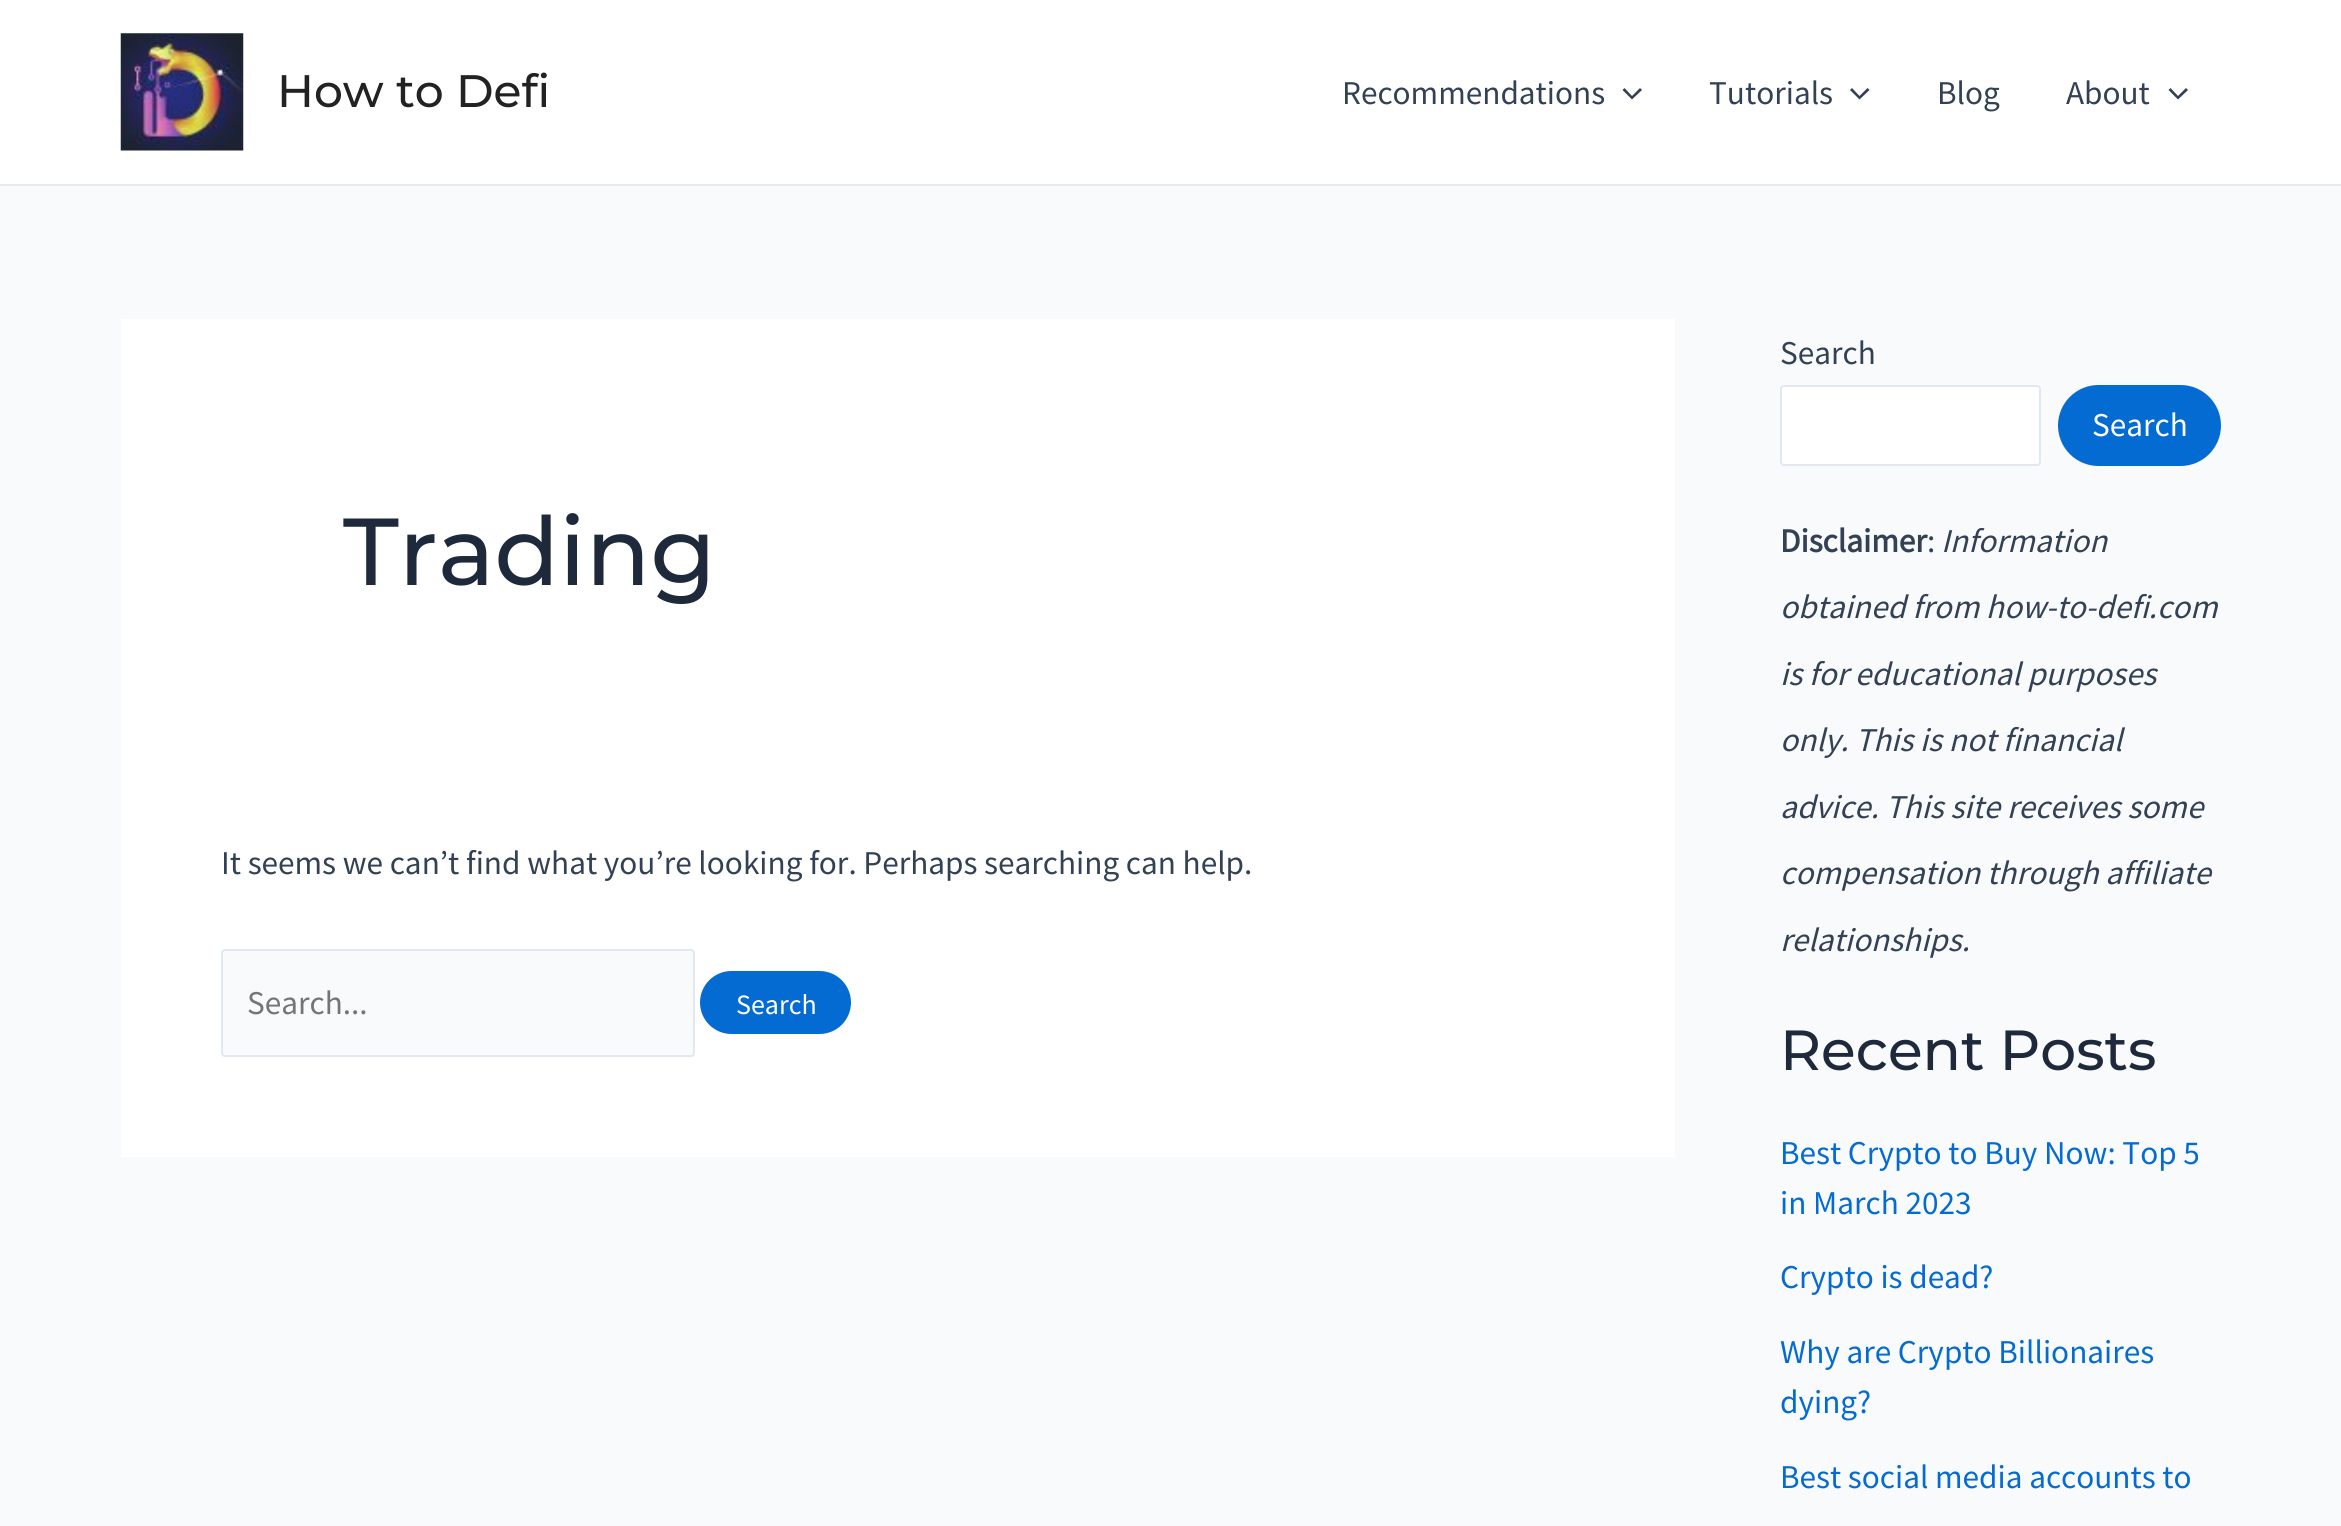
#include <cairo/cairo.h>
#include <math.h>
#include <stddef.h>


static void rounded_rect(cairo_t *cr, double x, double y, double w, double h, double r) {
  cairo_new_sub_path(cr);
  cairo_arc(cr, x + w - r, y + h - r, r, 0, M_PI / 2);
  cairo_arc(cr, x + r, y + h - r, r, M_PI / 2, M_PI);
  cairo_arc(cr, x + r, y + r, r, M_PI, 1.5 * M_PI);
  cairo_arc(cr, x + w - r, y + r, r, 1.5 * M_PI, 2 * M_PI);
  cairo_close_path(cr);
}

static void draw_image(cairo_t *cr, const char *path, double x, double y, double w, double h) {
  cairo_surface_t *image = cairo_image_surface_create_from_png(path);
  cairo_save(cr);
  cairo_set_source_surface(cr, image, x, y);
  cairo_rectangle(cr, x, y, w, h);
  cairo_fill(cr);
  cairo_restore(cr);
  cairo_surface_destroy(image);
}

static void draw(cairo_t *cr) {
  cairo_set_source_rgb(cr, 249 / 255.0, 250 / 255.0, 251 / 255.0);
  cairo_paint(cr);
  cairo_set_source_rgb(cr, 1, 1, 1);
  cairo_rectangle(cr, 0, 0, 2341, 184);
  cairo_fill(cr);
  cairo_set_source_rgb(cr, 234 / 255.0, 234 / 255.0, 234 / 255.0);
  cairo_rectangle(cr, 0, 184, 2341, 2);
  cairo_fill(cr);
  draw_image(cr, "images/1.png", 120, 33, 124, 118);
  cairo_set_source_rgb(cr, 51 / 255.0, 65 / 255.0, 85 / 255.0);
  cairo_new_path(cr);
  cairo_move_to(cr, 1622.5, 90);
  cairo_line_to(cr, 1632, 99.5);
  cairo_line_to(cr, 1642, 90);
  cairo_line_to(cr, 1640, 88);
  cairo_line_to(cr, 1632, 96);
  cairo_line_to(cr, 1624.5, 88);
  cairo_close_path(cr);
  cairo_fill(cr);
  cairo_new_path(cr);
  cairo_move_to(cr, 1850, 90);
  cairo_line_to(cr, 1859.5, 99.5);
  cairo_line_to(cr, 1869.5, 90);
  cairo_line_to(cr, 1867.5, 88);
  cairo_line_to(cr, 1859.5, 96);
  cairo_line_to(cr, 1852, 88);
  cairo_close_path(cr);
  cairo_fill(cr);
  cairo_new_path(cr);
  cairo_move_to(cr, 2168.5, 90);
  cairo_line_to(cr, 2178, 99.5);
  cairo_line_to(cr, 2188, 90);
  cairo_line_to(cr, 2186, 88);
  cairo_line_to(cr, 2178, 96);
  cairo_line_to(cr, 2170.5, 88);
  cairo_close_path(cr);
  cairo_fill(cr);
  cairo_set_source_rgb(cr, 1, 1, 1);
  cairo_rectangle(cr, 121, 319, 1554, 838);
  cairo_fill(cr);
  cairo_set_source_rgb(cr, 249 / 255.0, 250 / 255.0, 251 / 255.0);
  rounded_rect(cr, 222, 950, 472, 106, 3);
  cairo_fill_preserve(cr);
  cairo_set_source_rgb(cr, 226 / 255.0, 232 / 255.0, 240 / 255.0);
  cairo_stroke(cr);
  cairo_set_source_rgb(cr, 4 / 255.0, 107 / 255.0, 210 / 255.0);
  rounded_rect(cr, 700, 971, 151, 63, 31.5);
  cairo_fill(cr);
  cairo_set_source_rgb(cr, 1, 1, 1);
  rounded_rect(cr, 1781, 386, 259, 79, 3);
  cairo_fill_preserve(cr);
  cairo_set_source_rgb(cr, 226 / 255.0, 232 / 255.0, 240 / 255.0);
  cairo_stroke(cr);
  cairo_set_source_rgb(cr, 4 / 255.0, 107 / 255.0, 210 / 255.0);
  rounded_rect(cr, 2058, 385, 163, 81, 40.5);
  cairo_fill(cr);
  cairo_select_font_face(cr, "Montserrat Medium", CAIRO_FONT_SLANT_NORMAL, CAIRO_FONT_WEIGHT_NORMAL);
  cairo_set_font_size(cr, 45.5);
  cairo_set_source_rgb(cr, 34 / 255.0, 34 / 255.0, 34 / 255.0);
  cairo_move_to(cr, 277, 107);
  cairo_show_text(cr, "How to Defi");
  cairo_select_font_face(cr, "Source Sans Pro", CAIRO_FONT_SLANT_NORMAL, CAIRO_FONT_WEIGHT_NORMAL);
  cairo_set_font_size(cr, 33.25);
  cairo_set_source_rgb(cr, 51 / 255.0, 65 / 255.0, 85 / 255.0);
  cairo_move_to(cr, 1342, 104);
  cairo_show_text(cr, "Recommendations");
  cairo_move_to(cr, 1709, 104);
  cairo_show_text(cr, "Tutorials");
  cairo_move_to(cr, 1937, 104);
  cairo_show_text(cr, "Blog");
  cairo_move_to(cr, 2066, 104);
  cairo_show_text(cr, "About");
  cairo_select_font_face(cr, "Montserrat Medium", CAIRO_FONT_SLANT_NORMAL, CAIRO_FONT_WEIGHT_NORMAL);
  cairo_set_font_size(cr, 95);
  cairo_set_source_rgb(cr, 30 / 255.0, 41 / 255.0, 59 / 255.0);
  cairo_move_to(cr, 343, 585);
  cairo_show_text(cr, "Trading");
  cairo_select_font_face(cr, "Source Sans Pro", CAIRO_FONT_SLANT_NORMAL, CAIRO_FONT_WEIGHT_NORMAL);
  cairo_set_font_size(cr, 33.25);
  cairo_set_source_rgb(cr, 51 / 255.0, 65 / 255.0, 85 / 255.0);
  cairo_move_to(cr, 221, 874);
  cairo_show_text(cr, "It seems we can’t find what you’re looking for. Perhaps searching can help.");
  cairo_set_source_rgb(cr, 117 / 255.0, 117 / 255.0, 117 / 255.0);
  cairo_move_to(cr, 247, 1014);
  cairo_show_text(cr, "Search...");
  cairo_set_font_size(cr, 28);
  cairo_set_source_rgb(cr, 1, 1, 1);
  cairo_move_to(cr, 736, 1014);
  cairo_show_text(cr, "Search");
  cairo_set_font_size(cr, 33.25);
  cairo_set_source_rgb(cr, 51 / 255.0, 65 / 255.0, 85 / 255.0);
  cairo_move_to(cr, 1780, 364);
  cairo_show_text(cr, "Search");
  cairo_set_source_rgb(cr, 1, 1, 1);
  cairo_move_to(cr, 2092, 436);
  cairo_show_text(cr, "Search");
  cairo_select_font_face(cr, "Source Sans Pro", CAIRO_FONT_SLANT_NORMAL, CAIRO_FONT_WEIGHT_BOLD);
  cairo_set_source_rgb(cr, 51 / 255.0, 65 / 255.0, 85 / 255.0);
  cairo_move_to(cr, 1780, 552);
  cairo_show_text(cr, "Disclaimer");
  cairo_select_font_face(cr, "Source Sans Pro", CAIRO_FONT_SLANT_NORMAL, CAIRO_FONT_WEIGHT_NORMAL);
  cairo_move_to(cr, 1927, 552);
  cairo_show_text(cr, ":");
  cairo_select_font_face(cr, "Source Sans Pro", CAIRO_FONT_SLANT_ITALIC, CAIRO_FONT_WEIGHT_NORMAL);
  cairo_move_to(cr, 1941, 552);
  cairo_show_text(cr, "Information");
  cairo_move_to(cr, 1780, 618);
  cairo_show_text(cr, "obtained from how-to-defi.com");
  cairo_move_to(cr, 1780, 685);
  cairo_show_text(cr, "is for educational purposes");
  cairo_move_to(cr, 1780, 751);
  cairo_show_text(cr, "only. This is not financial");
  cairo_move_to(cr, 1780, 818);
  cairo_show_text(cr, "advice. This site receives some");
  cairo_move_to(cr, 1780, 884);
  cairo_show_text(cr, "compensation through affiliate");
  cairo_move_to(cr, 1780, 951);
  cairo_show_text(cr, "relationships.");
  cairo_select_font_face(cr, "Montserrat Medium", CAIRO_FONT_SLANT_NORMAL, CAIRO_FONT_WEIGHT_NORMAL);
  cairo_set_font_size(cr, 56.5);
  cairo_set_source_rgb(cr, 30 / 255.0, 41 / 255.0, 59 / 255.0);
  cairo_move_to(cr, 1780, 1070);
  cairo_show_text(cr, "Recent Posts");
  cairo_select_font_face(cr, "Source Sans Pro", CAIRO_FONT_SLANT_NORMAL, CAIRO_FONT_WEIGHT_NORMAL);
  cairo_set_font_size(cr, 33.25);
  cairo_set_source_rgb(cr, 4 / 255.0, 107 / 255.0, 210 / 255.0);
  cairo_move_to(cr, 1780, 1164);
  cairo_show_text(cr, "Best Crypto to Buy Now: Top 5");
  cairo_move_to(cr, 1780, 1214);
  cairo_show_text(cr, "in March 2023");
  cairo_move_to(cr, 1780, 1288);
  cairo_show_text(cr, "Crypto is dead?");
  cairo_move_to(cr, 1780, 1363);
  cairo_show_text(cr, "Why are Crypto Billionaires");
  cairo_move_to(cr, 1780, 1413);
  cairo_show_text(cr, "dying?");
  cairo_move_to(cr, 1780, 1488);
  cairo_show_text(cr, "Best social media accounts to");
}

int main(void) {
  cairo_surface_t *surface = cairo_image_surface_create(CAIRO_FORMAT_RGB24, 2341, 1526);
  cairo_t *cr = cairo_create(surface);
  cairo_font_options_t *options = cairo_font_options_create();
  cairo_font_options_set_hint_metrics(options, CAIRO_HINT_METRICS_OFF);
  cairo_font_options_set_hint_style(options, CAIRO_HINT_STYLE_NONE);
  cairo_set_font_options(cr, options);
  cairo_set_miter_limit(cr, 4);
  draw(cr);
  cairo_surface_write_to_png(surface, "out.png");
  cairo_font_options_destroy(options);
  cairo_destroy(cr);
  cairo_surface_destroy(surface);
  return 0;
}
